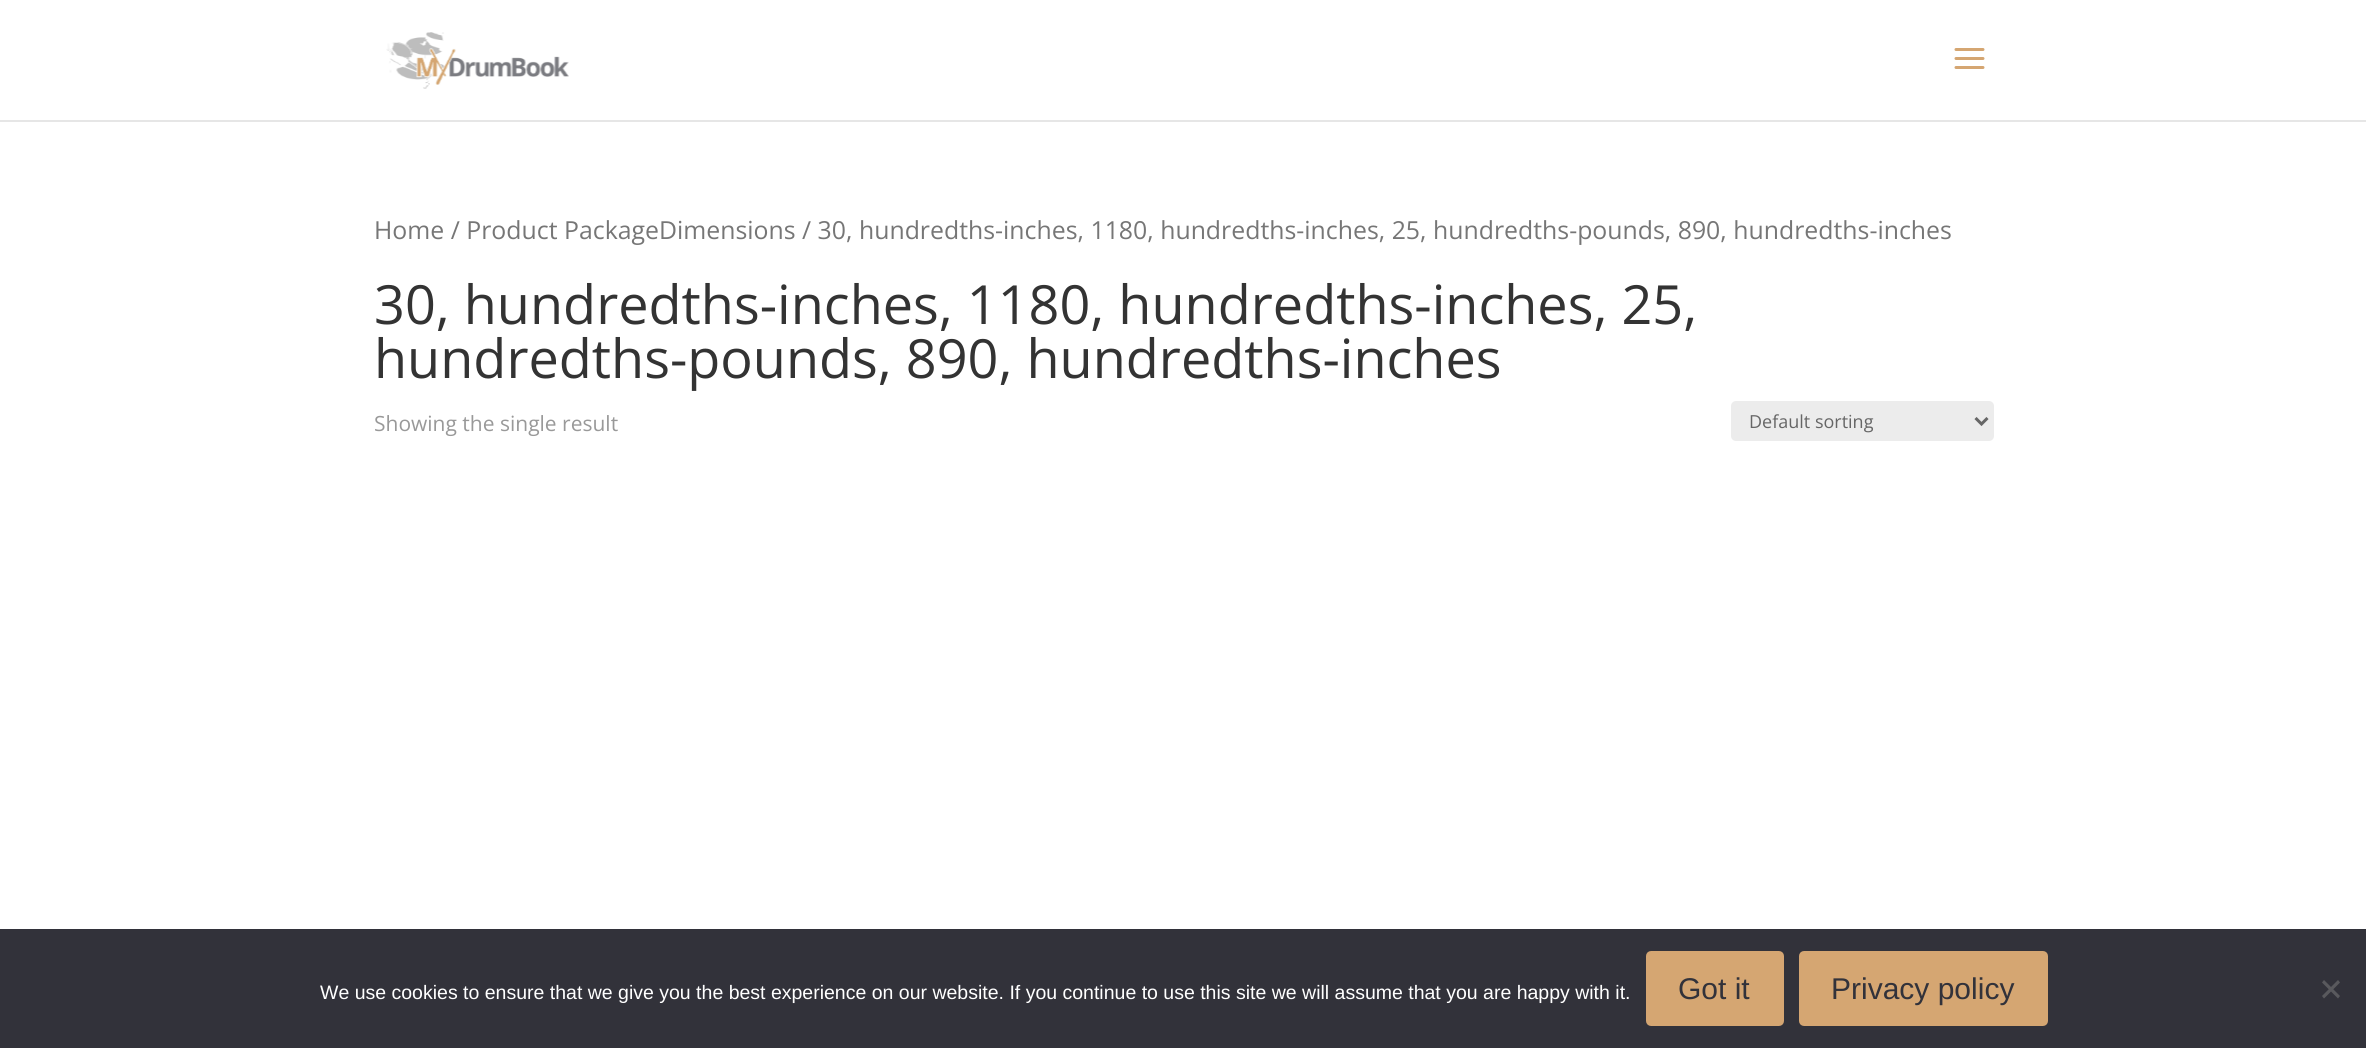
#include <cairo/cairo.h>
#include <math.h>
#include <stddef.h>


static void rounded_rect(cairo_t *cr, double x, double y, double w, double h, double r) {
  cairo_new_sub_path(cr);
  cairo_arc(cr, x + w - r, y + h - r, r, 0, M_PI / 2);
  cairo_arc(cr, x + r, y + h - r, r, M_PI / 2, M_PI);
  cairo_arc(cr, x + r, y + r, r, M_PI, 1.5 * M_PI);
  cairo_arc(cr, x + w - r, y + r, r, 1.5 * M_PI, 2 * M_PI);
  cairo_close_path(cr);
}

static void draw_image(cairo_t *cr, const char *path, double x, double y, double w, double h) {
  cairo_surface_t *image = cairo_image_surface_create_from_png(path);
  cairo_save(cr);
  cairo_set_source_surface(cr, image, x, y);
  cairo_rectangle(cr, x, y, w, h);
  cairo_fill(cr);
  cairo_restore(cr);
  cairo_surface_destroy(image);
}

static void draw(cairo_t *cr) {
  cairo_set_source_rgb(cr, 1, 1, 1);
  cairo_paint(cr);
  cairo_set_source_rgb(cr, 230 / 255.0, 230 / 255.0, 230 / 255.0);
  cairo_rectangle(cr, 0, 120, 2366, 2);
  cairo_fill(cr);
  draw_image(cr, "images/1.png", 386, 32, 183, 57);
  draw_image(cr, "images/2.png", 1954, 48, 31, 21);
  cairo_set_source_rgb(cr, 236 / 255.0, 236 / 255.0, 236 / 255.0);
  rounded_rect(cr, 1731, 401, 263, 40, 5);
  cairo_fill(cr);
  cairo_new_path(cr);
  cairo_move_to(cr, 1975.5, 418);
  cairo_line_to(cr, 1981.5, 424);
  cairo_line_to(cr, 1987.5, 418);
  cairo_set_source_rgb(cr, 102 / 255.0, 102 / 255.0, 102 / 255.0);
  cairo_set_line_width(cr, 3);
  cairo_stroke(cr);
  cairo_set_source_rgb(cr, 50 / 255.0, 50 / 255.0, 58 / 255.0);
  cairo_rectangle(cr, 0, 929, 2366, 119);
  cairo_fill(cr);
  cairo_set_source_rgb(cr, 213 / 255.0, 166 / 255.0, 114 / 255.0);
  rounded_rect(cr, 1647.5, 952.5, 135, 72, 3.5);
  cairo_fill_preserve(cr);
  cairo_stroke(cr);
  rounded_rect(cr, 1800.5, 952.5, 246, 72, 3.5);
  cairo_fill_preserve(cr);
  cairo_stroke(cr);
  cairo_set_source_rgb(cr, 89 / 255.0, 89 / 255.0, 93 / 255.0);
  cairo_new_path(cr);
  cairo_move_to(cr, 2338, 980);
  cairo_line_to(cr, 2340, 982.5);
  cairo_line_to(cr, 2324, 998.5);
  cairo_line_to(cr, 2322, 996);
  cairo_close_path(cr);
  cairo_fill(cr);
  cairo_new_path(cr);
  cairo_move_to(cr, 2322, 982.5);
  cairo_line_to(cr, 2324, 980);
  cairo_line_to(cr, 2340, 996);
  cairo_line_to(cr, 2338, 998.5);
  cairo_close_path(cr);
  cairo_fill(cr);
  cairo_select_font_face(cr, "Open Sans", CAIRO_FONT_SLANT_NORMAL, CAIRO_FONT_WEIGHT_NORMAL);
  cairo_set_font_size(cr, 24.85);
  cairo_set_source_rgb(cr, 118 / 255.0, 118 / 255.0, 118 / 255.0);
  cairo_move_to(cr, 374, 239);
  cairo_show_text(cr, "Home / Product PackageDimensions / 30, hundredths-inches, 1180, hundredths-inches, 25, hundredths-pounds, 890, hundredths-inches");
  cairo_set_font_size(cr, 54);
  cairo_set_source_rgb(cr, 51 / 255.0, 51 / 255.0, 51 / 255.0);
  cairo_move_to(cr, 374, 324);
  cairo_show_text(cr, "30, hundredths-inches, 1180, hundredths-inches, 25,");
  cairo_move_to(cr, 374, 378);
  cairo_show_text(cr, "hundredths-pounds, 890, hundredths-inches");
  cairo_set_font_size(cr, 21);
  cairo_set_source_rgb(cr, 153 / 255.0, 153 / 255.0, 153 / 255.0);
  cairo_move_to(cr, 374, 431);
  cairo_show_text(cr, "Showing the single result");
  cairo_set_font_size(cr, 18);
  cairo_set_source_rgb(cr, 102 / 255.0, 102 / 255.0, 102 / 255.0);
  cairo_move_to(cr, 1749, 428);
  cairo_show_text(cr, "Default sorting");
  cairo_select_font_face(cr, "Liberation Sans", CAIRO_FONT_SLANT_NORMAL, CAIRO_FONT_WEIGHT_NORMAL);
  cairo_set_font_size(cr, 19.5);
  cairo_set_source_rgb(cr, 1, 1, 1);
  cairo_move_to(cr, 320, 999);
  cairo_show_text(cr, "We use cookies to ensure that we give you the best experience on our website. If you continue to use this site we will assume that you are happy with it.");
  cairo_set_font_size(cr, 30);
  cairo_set_source_rgb(cr, 50 / 255.0, 50 / 255.0, 58 / 255.0);
  cairo_move_to(cr, 1678, 999);
  cairo_show_text(cr, "Got it");
  cairo_move_to(cr, 1831, 999);
  cairo_show_text(cr, "Privacy policy");
}

int main(void) {
  cairo_surface_t *surface = cairo_image_surface_create(CAIRO_FORMAT_RGB24, 2366, 1048);
  cairo_t *cr = cairo_create(surface);
  cairo_font_options_t *options = cairo_font_options_create();
  cairo_font_options_set_hint_metrics(options, CAIRO_HINT_METRICS_OFF);
  cairo_font_options_set_hint_style(options, CAIRO_HINT_STYLE_NONE);
  cairo_set_font_options(cr, options);
  cairo_set_miter_limit(cr, 4);
  draw(cr);
  cairo_surface_write_to_png(surface, "out.png");
  cairo_font_options_destroy(options);
  cairo_destroy(cr);
  cairo_surface_destroy(surface);
  return 0;
}
